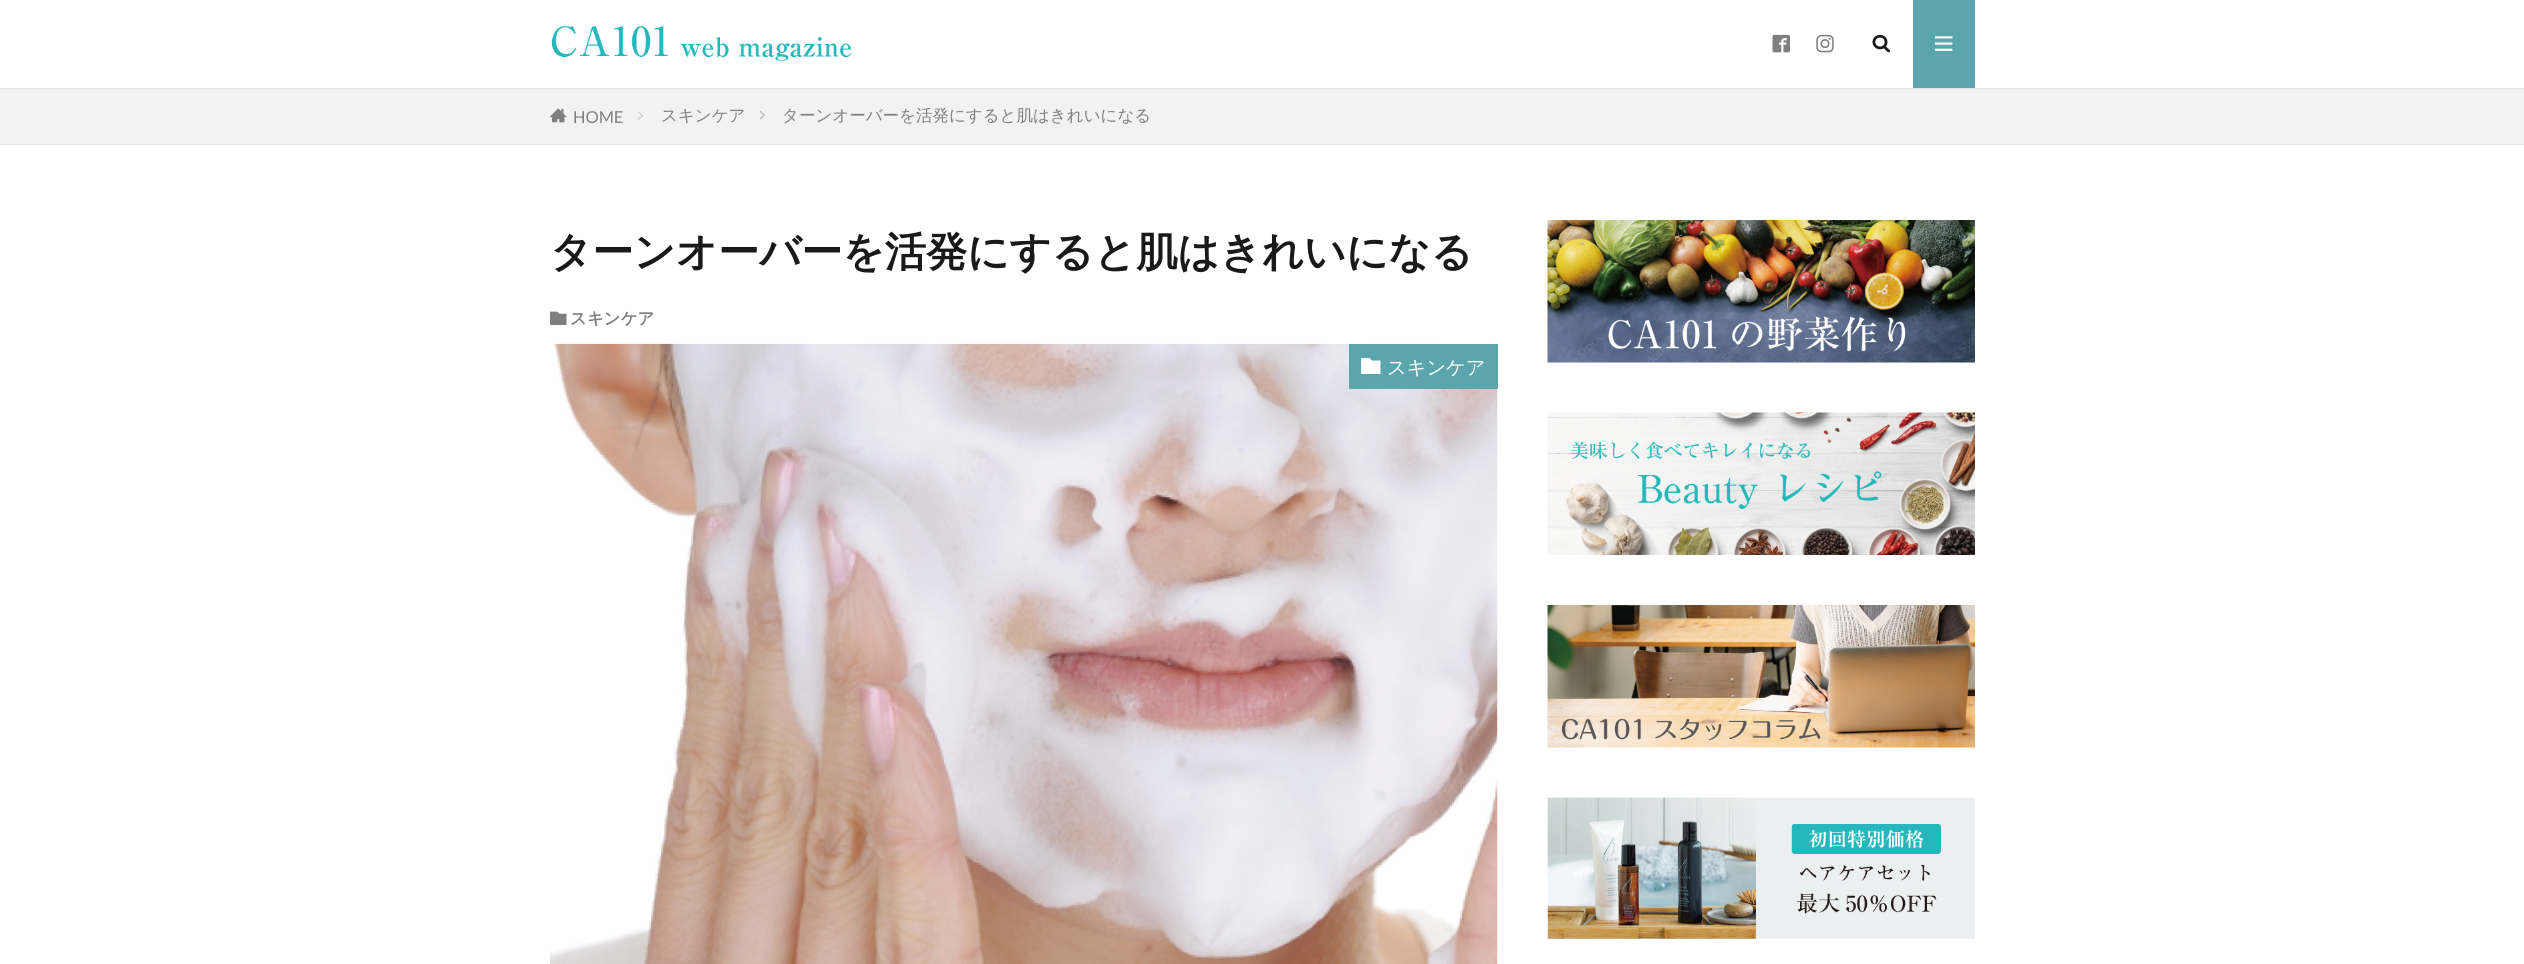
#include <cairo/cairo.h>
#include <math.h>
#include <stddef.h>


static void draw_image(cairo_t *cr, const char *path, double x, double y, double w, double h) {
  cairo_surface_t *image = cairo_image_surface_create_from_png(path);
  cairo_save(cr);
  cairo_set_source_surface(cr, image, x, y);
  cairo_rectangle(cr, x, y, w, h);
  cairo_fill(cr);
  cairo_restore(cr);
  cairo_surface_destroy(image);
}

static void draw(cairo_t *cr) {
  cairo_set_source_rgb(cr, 1, 1, 1);
  cairo_paint(cr);
  cairo_set_source_rgb(cr, 230 / 255.0, 230 / 255.0, 230 / 255.0);
  cairo_rectangle(cr, 0, 88, 2524, 1);
  cairo_fill(cr);
  draw_image(cr, "images/1.png", 551, 25, 301, 36);
  draw_image(cr, "images/2.png", 1772, 34, 18, 19);
  draw_image(cr, "images/3.png", 1816, 34, 18, 19);
  draw_image(cr, "images/4.png", 1872, 34, 18, 19);
  cairo_set_source_rgb(cr, 91 / 255.0, 165 / 255.0, 173 / 255.0);
  cairo_rectangle(cr, 1913, 0, 62, 88);
  cairo_fill(cr);
  draw_image(cr, "images/5.png", 1935, 36, 18, 15);
  cairo_set_source_rgb(cr, 242 / 255.0, 242 / 255.0, 242 / 255.0);
  cairo_rectangle(cr, 0, 89, 2524, 55);
  cairo_fill(cr);
  cairo_set_source_rgb(cr, 230 / 255.0, 230 / 255.0, 230 / 255.0);
  cairo_rectangle(cr, 0, 144, 2524, 1);
  cairo_fill(cr);
  draw_image(cr, "images/6.png", 550, 108, 17, 15);
  cairo_set_source_rgb(cr, 191 / 255.0, 191 / 255.0, 191 / 255.0);
  cairo_new_path(cr);
  cairo_move_to(cr, 638.5, 111.5);
  cairo_line_to(cr, 643, 115.5);
  cairo_line_to(cr, 642.5, 116.5);
  cairo_line_to(cr, 638, 112);
  cairo_close_path(cr);
  cairo_fill(cr);
  cairo_new_path(cr);
  cairo_move_to(cr, 642.5, 115);
  cairo_line_to(cr, 643, 115.5);
  cairo_line_to(cr, 638.5, 120);
  cairo_line_to(cr, 638, 119);
  cairo_close_path(cr);
  cairo_fill(cr);
  cairo_new_path(cr);
  cairo_move_to(cr, 760.5, 110.5);
  cairo_line_to(cr, 765, 115);
  cairo_line_to(cr, 764, 116);
  cairo_line_to(cr, 759.5, 111.5);
  cairo_close_path(cr);
  cairo_fill(cr);
  cairo_new_path(cr);
  cairo_move_to(cr, 764, 114);
  cairo_line_to(cr, 765, 115);
  cairo_line_to(cr, 760.5, 119.5);
  cairo_line_to(cr, 759.5, 118.5);
  cairo_close_path(cr);
  cairo_fill(cr);
  draw_image(cr, "images/7.png", 550, 311, 17, 14);
  draw_image(cr, "images/8.png", 550, 343, 948, 621);
  cairo_set_source_rgb(cr, 91 / 255.0, 165 / 255.0, 173 / 255.0);
  cairo_rectangle(cr, 1349, 344, 149, 45);
  cairo_fill(cr);
  cairo_set_source_rgb(cr, 1, 1, 1);
  cairo_new_path(cr);
  cairo_move_to(cr, 1369.5, 358);
  cairo_line_to(cr, 1372, 360.5);
  cairo_line_to(cr, 1380.5, 360.5);
  cairo_line_to(cr, 1380.5, 374);
  cairo_line_to(cr, 1361, 374);
  cairo_line_to(cr, 1361, 358);
  cairo_close_path(cr);
  cairo_fill(cr);
  draw_image(cr, "images/9.png", 1547, 220, 428, 143);
  draw_image(cr, "images/10.png", 1547, 412, 428, 143);
  draw_image(cr, "images/11.png", 1547, 605, 428, 143);
  draw_image(cr, "images/12.png", 1547, 797, 428, 142);
  cairo_select_font_face(cr, "Lato", CAIRO_FONT_SLANT_NORMAL, CAIRO_FONT_WEIGHT_NORMAL);
  cairo_set_font_size(cr, 16.5);
  cairo_set_source_rgb(cr, 127 / 255.0, 127 / 255.0, 127 / 255.0);
  cairo_move_to(cr, 573, 123);
  cairo_show_text(cr, "HOME");
  cairo_select_font_face(cr, "WenQuanYi Zen Hei Medium", CAIRO_FONT_SLANT_NORMAL, CAIRO_FONT_WEIGHT_NORMAL);
  cairo_move_to(cr, 661, 121);
  cairo_show_text(cr, "スキンケア");
  cairo_move_to(cr, 782, 121);
  cairo_show_text(cr, "ターンオーバーを活発にすると肌はきれいになる");
  cairo_select_font_face(cr, "WenQuanYi Zen Hei", CAIRO_FONT_SLANT_NORMAL, CAIRO_FONT_WEIGHT_BOLD);
  cairo_set_font_size(cr, 41.25);
  cairo_set_source_rgb(cr, 25 / 255.0, 25 / 255.0, 25 / 255.0);
  cairo_move_to(cr, 550, 266);
  cairo_show_text(cr, "ターンオーバーを活発にすると肌はきれいになる");
  cairo_set_font_size(cr, 16.5);
  cairo_set_source_rgb(cr, 127 / 255.0, 127 / 255.0, 127 / 255.0);
  cairo_move_to(cr, 570, 324);
  cairo_show_text(cr, "スキンケア");
  cairo_select_font_face(cr, "WenQuanYi Zen Hei Medium", CAIRO_FONT_SLANT_NORMAL, CAIRO_FONT_WEIGHT_NORMAL);
  cairo_set_font_size(cr, 19.25);
  cairo_set_source_rgb(cr, 1, 1, 1);
  cairo_move_to(cr, 1387, 374);
  cairo_show_text(cr, "スキンケア");
}

int main(void) {
  cairo_surface_t *surface = cairo_image_surface_create(CAIRO_FORMAT_RGB24, 2524, 964);
  cairo_t *cr = cairo_create(surface);
  cairo_font_options_t *options = cairo_font_options_create();
  cairo_font_options_set_hint_metrics(options, CAIRO_HINT_METRICS_OFF);
  cairo_font_options_set_hint_style(options, CAIRO_HINT_STYLE_NONE);
  cairo_set_font_options(cr, options);
  cairo_set_miter_limit(cr, 4);
  draw(cr);
  cairo_surface_write_to_png(surface, "out.png");
  cairo_font_options_destroy(options);
  cairo_destroy(cr);
  cairo_surface_destroy(surface);
  return 0;
}
